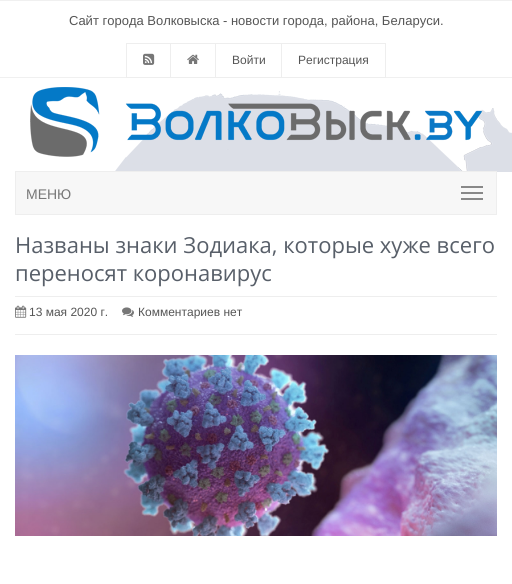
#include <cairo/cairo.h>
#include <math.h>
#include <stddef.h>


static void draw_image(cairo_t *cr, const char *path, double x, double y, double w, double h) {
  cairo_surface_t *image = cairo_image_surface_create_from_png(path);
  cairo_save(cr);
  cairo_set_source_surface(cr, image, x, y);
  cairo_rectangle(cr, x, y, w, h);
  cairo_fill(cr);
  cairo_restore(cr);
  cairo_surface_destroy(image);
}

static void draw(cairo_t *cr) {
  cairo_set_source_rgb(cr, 1, 1, 1);
  cairo_paint(cr);
  cairo_set_source_rgb(cr, 240 / 255.0, 240 / 255.0, 240 / 255.0);
  cairo_rectangle(cr, 0, 0, 512, 1);
  cairo_fill(cr);
  cairo_rectangle(cr, 0, 77, 512, 1);
  cairo_fill(cr);
  cairo_rectangle(cr, 126.5, 43.5, 44, 34);
  cairo_set_source_rgb(cr, 238 / 255.0, 238 / 255.0, 238 / 255.0);
  cairo_set_line_width(cr, 1);
  cairo_stroke(cr);
  draw_image(cr, "images/1.png", 143, 53, 12, 12);
  cairo_rectangle(cr, 170.5, 43.5, 45, 34);
  cairo_stroke(cr);
  draw_image(cr, "images/2.png", 187, 54, 12, 10);
  cairo_rectangle(cr, 215.5, 43.5, 66, 34);
  cairo_stroke(cr);
  cairo_rectangle(cr, 281.5, 43.5, 104, 34);
  cairo_stroke(cr);
  draw_image(cr, "images/3.png", 115, 91, 397, 81);
  draw_image(cr, "images/4.png", 30, 87, 452, 70);
  cairo_set_source_rgb(cr, 247 / 255.0, 247 / 255.0, 247 / 255.0);
  cairo_rectangle(cr, 15.5, 171.5, 481, 43);
  cairo_fill_preserve(cr);
  cairo_set_source_rgb(cr, 238 / 255.0, 238 / 255.0, 238 / 255.0);
  cairo_stroke(cr);
  cairo_set_source_rgb(cr, 136 / 255.0, 136 / 255.0, 136 / 255.0);
  cairo_rectangle(cr, 461, 186, 22, 2);
  cairo_fill(cr);
  cairo_rectangle(cr, 461, 192, 22, 2);
  cairo_fill(cr);
  cairo_rectangle(cr, 461, 198, 22, 2);
  cairo_fill(cr);
  cairo_set_source_rgb(cr, 238 / 255.0, 238 / 255.0, 238 / 255.0);
  cairo_rectangle(cr, 15, 296, 482, 1);
  cairo_fill(cr);
  cairo_rectangle(cr, 15, 334, 482, 1);
  cairo_fill(cr);
  draw_image(cr, "images/5.png", 15, 305, 12, 13);
  draw_image(cr, "images/6.png", 122, 307, 12, 10);
  draw_image(cr, "images/7.png", 15, 355, 482, 181);
  cairo_select_font_face(cr, "Liberation Sans", CAIRO_FONT_SLANT_NORMAL, CAIRO_FONT_WEIGHT_NORMAL);
  cairo_set_font_size(cr, 13);
  cairo_set_source_rgb(cr, 85 / 255.0, 85 / 255.0, 85 / 255.0);
  cairo_move_to(cr, 69, 25);
  cairo_show_text(cr, "Сайт города Волковыска - новости города, района, Беларуси.");
  cairo_set_font_size(cr, 12);
  cairo_move_to(cr, 232, 64);
  cairo_show_text(cr, "Войти");
  cairo_move_to(cr, 298, 64);
  cairo_show_text(cr, "Регистрация");
  cairo_set_font_size(cr, 14);
  cairo_set_source_rgb(cr, 119 / 255.0, 119 / 255.0, 119 / 255.0);
  cairo_move_to(cr, 26, 199);
  cairo_show_text(cr, "МЕНЮ");
  cairo_select_font_face(cr, "Open Sans", CAIRO_FONT_SLANT_NORMAL, CAIRO_FONT_WEIGHT_NORMAL);
  cairo_set_font_size(cr, 22);
  cairo_set_source_rgb(cr, 88 / 255.0, 95 / 255.0, 105 / 255.0);
  cairo_move_to(cr, 15, 253);
  cairo_show_text(cr, "Названы знаки Зодиака, которые хуже всего");
  cairo_move_to(cr, 15, 281);
  cairo_show_text(cr, "переносят коронавирус");
  cairo_select_font_face(cr, "Liberation Sans", CAIRO_FONT_SLANT_NORMAL, CAIRO_FONT_WEIGHT_NORMAL);
  cairo_set_font_size(cr, 12);
  cairo_set_source_rgb(cr, 85 / 255.0, 85 / 255.0, 85 / 255.0);
  cairo_move_to(cr, 29, 316);
  cairo_show_text(cr, "13 мая 2020 г.");
  cairo_move_to(cr, 138, 316);
  cairo_show_text(cr, "Комментариев нет");
}

int main(void) {
  cairo_surface_t *surface = cairo_image_surface_create(CAIRO_FORMAT_RGB24, 512, 584);
  cairo_t *cr = cairo_create(surface);
  cairo_font_options_t *options = cairo_font_options_create();
  cairo_font_options_set_hint_metrics(options, CAIRO_HINT_METRICS_OFF);
  cairo_font_options_set_hint_style(options, CAIRO_HINT_STYLE_NONE);
  cairo_set_font_options(cr, options);
  cairo_set_miter_limit(cr, 4);
  draw(cr);
  cairo_surface_write_to_png(surface, "out.png");
  cairo_font_options_destroy(options);
  cairo_destroy(cr);
  cairo_surface_destroy(surface);
  return 0;
}
